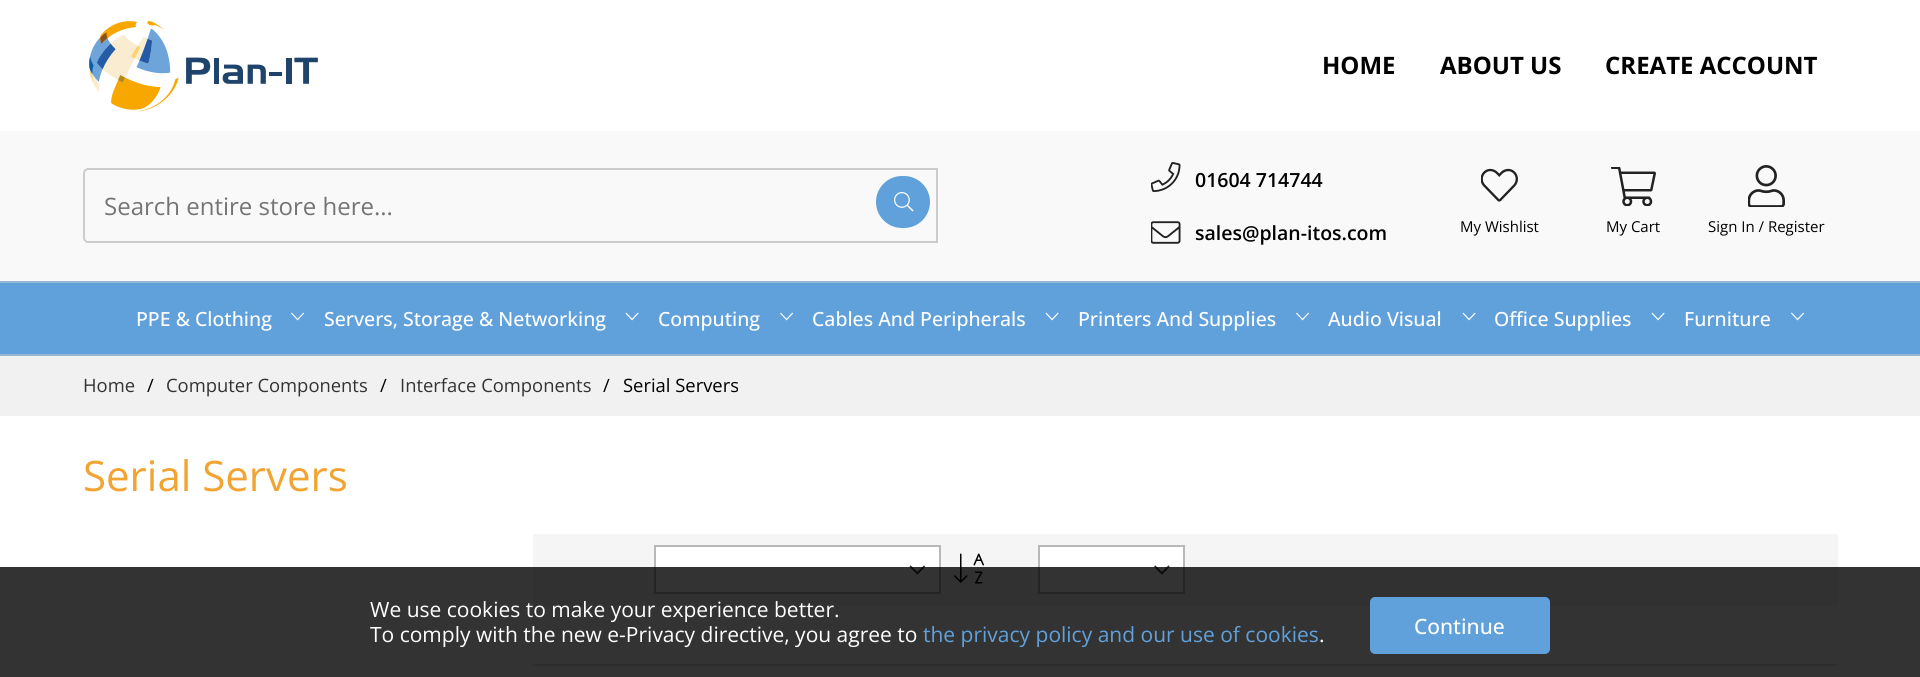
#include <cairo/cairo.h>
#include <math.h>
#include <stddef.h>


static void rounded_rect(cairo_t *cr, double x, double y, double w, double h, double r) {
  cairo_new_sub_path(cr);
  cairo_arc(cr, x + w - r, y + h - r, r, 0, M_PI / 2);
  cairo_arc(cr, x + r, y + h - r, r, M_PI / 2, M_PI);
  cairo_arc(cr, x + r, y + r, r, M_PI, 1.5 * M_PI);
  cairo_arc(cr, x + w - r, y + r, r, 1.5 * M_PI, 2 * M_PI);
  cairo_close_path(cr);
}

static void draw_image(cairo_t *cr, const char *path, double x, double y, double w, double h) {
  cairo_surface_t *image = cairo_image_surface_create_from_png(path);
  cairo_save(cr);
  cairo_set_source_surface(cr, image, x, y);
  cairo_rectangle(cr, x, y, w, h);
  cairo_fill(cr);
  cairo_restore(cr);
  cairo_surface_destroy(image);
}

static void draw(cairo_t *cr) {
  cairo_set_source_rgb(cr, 1, 1, 1);
  cairo_paint(cr);
  cairo_set_source_rgb(cr, 96 / 255.0, 161 / 255.0, 219 / 255.0);
  cairo_rectangle(cr, 0, 283, 1920, 71);
  cairo_fill(cr);
  draw_image(cr, "images/1.png", 89, 21, 229, 91);
  cairo_set_source_rgb(cr, 249 / 255.0, 249 / 255.0, 249 / 255.0);
  cairo_rectangle(cr, 0, 131, 1920, 150);
  cairo_fill(cr);
  cairo_new_path(cr);
  cairo_move_to(cr, 88, 169);
  cairo_line_to(cr, 937, 169);
  cairo_line_to(cr, 937, 242);
  cairo_line_to(cr, 88, 242);
  cairo_curve_to(cr, 86, 242, 84, 240, 84, 238);
  cairo_line_to(cr, 84, 173);
  cairo_curve_to(cr, 84, 171, 86, 169, 88, 169);
  cairo_close_path(cr);
  cairo_set_source_rgb(cr, 204 / 255.0, 204 / 255.0, 204 / 255.0);
  cairo_stroke(cr);
  cairo_set_source_rgb(cr, 96 / 255.0, 161 / 255.0, 219 / 255.0);
  rounded_rect(cr, 876, 176, 54, 52, 26);
  cairo_fill(cr);
  draw_image(cr, "images/2.png", 894, 192, 20, 20);
  draw_image(cr, "images/3.png", 1151, 162, 30, 30);
  draw_image(cr, "images/4.png", 1151, 221, 30, 23);
  draw_image(cr, "images/5.png", 1481, 168, 37, 34);
  draw_image(cr, "images/6.png", 1611, 167, 45, 39);
  draw_image(cr, "images/7.png", 1748, 165, 37, 42);
  cairo_set_source_rgb(cr, 150 / 255.0, 183 / 255.0, 212 / 255.0);
  cairo_rectangle(cr, 0, 281, 1920, 2);
  cairo_fill(cr);
  cairo_rectangle(cr, 0, 354, 1920, 2);
  cairo_fill(cr);
  draw_image(cr, "images/8.png", 291, 312, 13, 9);
  draw_image(cr, "images/9.png", 625, 312, 14, 9);
  draw_image(cr, "images/8.png", 780, 312, 13, 9);
  draw_image(cr, "images/9.png", 1045, 312, 14, 9);
  draw_image(cr, "images/8.png", 1296, 312, 13, 9);
  draw_image(cr, "images/9.png", 1462, 312, 14, 9);
  draw_image(cr, "images/9.png", 1651, 312, 14, 9);
  draw_image(cr, "images/8.png", 1791, 312, 13, 9);
  cairo_set_source_rgb(cr, 241 / 255.0, 241 / 255.0, 241 / 255.0);
  cairo_rectangle(cr, 0, 356, 1920, 60);
  cairo_fill(cr);
  cairo_set_source_rgb(cr, 245 / 255.0, 245 / 255.0, 245 / 255.0);
  cairo_rectangle(cr, 533, 534, 1305, 72);
  cairo_fill(cr);
  cairo_set_source_rgb(cr, 1, 1, 1);
  cairo_rectangle(cr, 655, 546, 285, 47);
  cairo_fill_preserve(cr);
  cairo_set_source_rgb(cr, 184 / 255.0, 184 / 255.0, 184 / 255.0);
  cairo_stroke(cr);
  draw_image(cr, "images/10.png", 909, 565, 17, 10);
  draw_image(cr, "images/11.png", 954, 553, 30, 31);
  cairo_set_source_rgb(cr, 1, 1, 1);
  cairo_rectangle(cr, 1039, 546, 145, 47);
  cairo_fill_preserve(cr);
  cairo_set_source_rgb(cr, 184 / 255.0, 184 / 255.0, 184 / 255.0);
  cairo_stroke(cr);
  draw_image(cr, "images/12.png", 1154, 565, 16, 10);
  cairo_set_source_rgb(cr, 225 / 255.0, 225 / 255.0, 225 / 255.0);
  cairo_new_path(cr);
  cairo_move_to(cr, 532, 664);
  cairo_line_to(cr, 1838, 664);
  cairo_line_to(cr, 1836, 666);
  cairo_line_to(cr, 534, 666);
  cairo_close_path(cr);
  cairo_fill(cr);
  cairo_set_source_rgba(cr, 0, 0, 0, 0.8);
  cairo_rectangle(cr, 0, 567, 1920, 110);
  cairo_fill(cr);
  cairo_set_source_rgb(cr, 96 / 255.0, 161 / 255.0, 219 / 255.0);
  rounded_rect(cr, 1371, 598, 178, 55, 4);
  cairo_fill_preserve(cr);
  cairo_stroke(cr);
  cairo_select_font_face(cr, "Open Sans", CAIRO_FONT_SLANT_NORMAL, CAIRO_FONT_WEIGHT_BOLD);
  cairo_set_font_size(cr, 24);
  cairo_set_source_rgb(cr, 0, 0, 0);
  cairo_move_to(cr, 1322, 74);
  cairo_show_text(cr, "HOME");
  cairo_move_to(cr, 1440, 74);
  cairo_show_text(cr, "ABOUT US");
  cairo_move_to(cr, 1605, 74);
  cairo_show_text(cr, "CREATE ACCOUNT");
  cairo_select_font_face(cr, "Open Sans", CAIRO_FONT_SLANT_NORMAL, CAIRO_FONT_WEIGHT_NORMAL);
  cairo_set_source_rgb(cr, 117 / 255.0, 117 / 255.0, 117 / 255.0);
  cairo_move_to(cr, 104, 215);
  cairo_show_text(cr, "Search entire store here...");
  cairo_select_font_face(cr, "Open Sans SemiBold", CAIRO_FONT_SLANT_NORMAL, CAIRO_FONT_WEIGHT_NORMAL);
  cairo_set_font_size(cr, 19.5);
  cairo_set_source_rgb(cr, 0, 0, 0);
  cairo_move_to(cr, 1195, 187);
  cairo_show_text(cr, "01604 714744");
  cairo_move_to(cr, 1195, 240);
  cairo_show_text(cr, "sales@plan-itos.com");
  cairo_select_font_face(cr, "Open Sans", CAIRO_FONT_SLANT_NORMAL, CAIRO_FONT_WEIGHT_NORMAL);
  cairo_set_font_size(cr, 15);
  cairo_move_to(cr, 1460, 232);
  cairo_show_text(cr, "My Wishlist");
  cairo_move_to(cr, 1606, 232);
  cairo_show_text(cr, "My Cart");
  cairo_move_to(cr, 1708, 232);
  cairo_show_text(cr, "Sign In / Register");
  cairo_select_font_face(cr, "Open Sans Medium", CAIRO_FONT_SLANT_NORMAL, CAIRO_FONT_WEIGHT_NORMAL);
  cairo_set_font_size(cr, 19.5);
  cairo_set_source_rgb(cr, 1, 1, 1);
  cairo_move_to(cr, 136, 326);
  cairo_show_text(cr, "PPE & Clothing");
  cairo_move_to(cr, 324, 326);
  cairo_show_text(cr, "Servers, Storage & Networking");
  cairo_move_to(cr, 658, 326);
  cairo_show_text(cr, "Computing");
  cairo_move_to(cr, 812, 326);
  cairo_show_text(cr, "Cables And Peripherals");
  cairo_move_to(cr, 1078, 326);
  cairo_show_text(cr, "Printers And Supplies");
  cairo_move_to(cr, 1328, 326);
  cairo_show_text(cr, "Audio Visual");
  cairo_move_to(cr, 1494, 326);
  cairo_show_text(cr, "Office Supplies");
  cairo_move_to(cr, 1684, 326);
  cairo_show_text(cr, "Furniture");
  cairo_select_font_face(cr, "Open Sans", CAIRO_FONT_SLANT_NORMAL, CAIRO_FONT_WEIGHT_NORMAL);
  cairo_set_font_size(cr, 18.4);
  cairo_set_source_rgb(cr, 51 / 255.0, 51 / 255.0, 51 / 255.0);
  cairo_move_to(cr, 83, 392);
  cairo_show_text(cr, "Home");
  cairo_set_source_rgb(cr, 0, 0, 0);
  cairo_move_to(cr, 147, 392);
  cairo_show_text(cr, "/");
  cairo_set_source_rgb(cr, 51 / 255.0, 51 / 255.0, 51 / 255.0);
  cairo_move_to(cr, 166, 392);
  cairo_show_text(cr, "Computer Components");
  cairo_set_source_rgb(cr, 0, 0, 0);
  cairo_move_to(cr, 380, 392);
  cairo_show_text(cr, "/");
  cairo_set_source_rgb(cr, 51 / 255.0, 51 / 255.0, 51 / 255.0);
  cairo_move_to(cr, 400, 392);
  cairo_show_text(cr, "Interface Components");
  cairo_set_source_rgb(cr, 0, 0, 0);
  cairo_move_to(cr, 603, 392);
  cairo_show_text(cr, "/");
  cairo_move_to(cr, 623, 392);
  cairo_show_text(cr, "Serial Servers");
  cairo_set_font_size(cr, 42);
  cairo_set_source_rgb(cr, 241 / 255.0, 164 / 255.0, 50 / 255.0);
  cairo_move_to(cr, 83, 491);
  cairo_show_text(cr, "Serial Servers");
  cairo_set_font_size(cr, 21);
  cairo_set_source_rgb(cr, 1, 1, 1);
  cairo_move_to(cr, 370, 617);
  cairo_show_text(cr, "We use cookies to make your experience better.");
  cairo_move_to(cr, 370, 642);
  cairo_show_text(cr, "To comply with the new e-Privacy directive, you agree to");
  cairo_set_source_rgb(cr, 96 / 255.0, 161 / 255.0, 219 / 255.0);
  cairo_move_to(cr, 923, 642);
  cairo_show_text(cr, "the privacy policy and our use of cookies");
  cairo_set_source_rgb(cr, 1, 1, 1);
  cairo_move_to(cr, 1319, 642);
  cairo_show_text(cr, ".");
  cairo_select_font_face(cr, "Open Sans Medium", CAIRO_FONT_SLANT_NORMAL, CAIRO_FONT_WEIGHT_NORMAL);
  cairo_move_to(cr, 1414, 634);
  cairo_show_text(cr, "Continue");
}

int main(void) {
  cairo_surface_t *surface = cairo_image_surface_create(CAIRO_FORMAT_RGB24, 1920, 677);
  cairo_t *cr = cairo_create(surface);
  cairo_font_options_t *options = cairo_font_options_create();
  cairo_font_options_set_hint_metrics(options, CAIRO_HINT_METRICS_OFF);
  cairo_font_options_set_hint_style(options, CAIRO_HINT_STYLE_NONE);
  cairo_set_font_options(cr, options);
  cairo_set_miter_limit(cr, 4);
  draw(cr);
  cairo_surface_write_to_png(surface, "out.png");
  cairo_font_options_destroy(options);
  cairo_destroy(cr);
  cairo_surface_destroy(surface);
  return 0;
}
